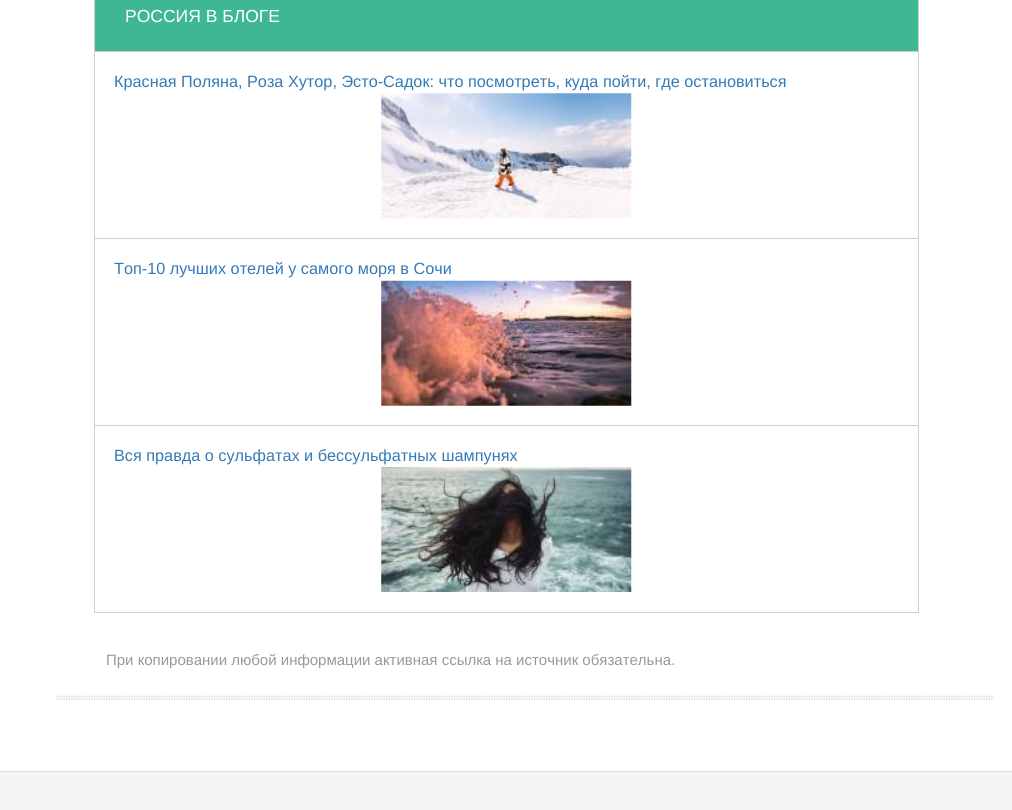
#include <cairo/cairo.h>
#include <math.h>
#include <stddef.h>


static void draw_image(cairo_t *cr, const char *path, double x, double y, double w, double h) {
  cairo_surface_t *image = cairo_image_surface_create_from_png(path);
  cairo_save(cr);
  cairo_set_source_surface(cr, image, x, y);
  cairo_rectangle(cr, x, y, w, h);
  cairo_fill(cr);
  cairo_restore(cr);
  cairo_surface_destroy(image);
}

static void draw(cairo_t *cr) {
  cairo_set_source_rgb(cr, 1, 1, 1);
  cairo_paint(cr);
  cairo_rectangle(cr, 94.5, -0.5, 824, 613);
  cairo_set_source_rgb(cr, 207 / 255.0, 207 / 255.0, 207 / 255.0);
  cairo_set_line_width(cr, 1);
  cairo_stroke(cr);
  cairo_set_source_rgb(cr, 62 / 255.0, 183 / 255.0, 146 / 255.0);
  cairo_rectangle(cr, 95, 0, 823, 51);
  cairo_fill(cr);
  cairo_set_source_rgb(cr, 207 / 255.0, 207 / 255.0, 207 / 255.0);
  cairo_rectangle(cr, 95, 51, 823, 1);
  cairo_fill(cr);
  draw_image(cr, "images/1.png", 381, 93, 251, 126);
  cairo_rectangle(cr, 95, 238, 823, 1);
  cairo_fill(cr);
  draw_image(cr, "images/2.png", 381, 280, 251, 126);
  cairo_rectangle(cr, 95, 425, 823, 1);
  cairo_fill(cr);
  draw_image(cr, "images/3.png", 381, 467, 251, 125);
  draw_image(cr, "images/4.png", 56, 695, 938, 5);
  cairo_set_source_rgb(cr, 245 / 255.0, 245 / 255.0, 245 / 255.0);
  cairo_rectangle(cr, 0, 772, 1012, 38);
  cairo_fill(cr);
  cairo_set_source_rgb(cr, 221 / 255.0, 221 / 255.0, 221 / 255.0);
  cairo_rectangle(cr, 0, 771, 1012, 1);
  cairo_fill(cr);
  cairo_select_font_face(cr, "Liberation Sans", CAIRO_FONT_SLANT_NORMAL, CAIRO_FONT_WEIGHT_NORMAL);
  cairo_set_font_size(cr, 17.5);
  cairo_set_source_rgb(cr, 1, 1, 1);
  cairo_move_to(cr, 125, 22);
  cairo_show_text(cr, "РОССИЯ В БЛОГЕ");
  cairo_set_font_size(cr, 16.25);
  cairo_set_source_rgb(cr, 51 / 255.0, 122 / 255.0, 183 / 255.0);
  cairo_move_to(cr, 114, 87);
  cairo_show_text(cr, "Красная Поляна, Роза Хутор, Эсто-Садок: что посмотреть, куда пойти, где остановиться");
  cairo_move_to(cr, 114, 274);
  cairo_show_text(cr, "Топ-10 лучших отелей у самого моря в Сочи");
  cairo_move_to(cr, 114, 461);
  cairo_show_text(cr, "Вся правда о сульфатах и бессульфатных шампунях");
  cairo_set_font_size(cr, 15);
  cairo_set_source_rgb(cr, 153 / 255.0, 153 / 255.0, 153 / 255.0);
  cairo_move_to(cr, 106, 665);
  cairo_show_text(cr, "При копировании любой информации активная ссылка на источник обязательна.");
}

int main(void) {
  cairo_surface_t *surface = cairo_image_surface_create(CAIRO_FORMAT_RGB24, 1012, 810);
  cairo_t *cr = cairo_create(surface);
  cairo_font_options_t *options = cairo_font_options_create();
  cairo_font_options_set_hint_metrics(options, CAIRO_HINT_METRICS_OFF);
  cairo_font_options_set_hint_style(options, CAIRO_HINT_STYLE_NONE);
  cairo_set_font_options(cr, options);
  cairo_set_miter_limit(cr, 4);
  draw(cr);
  cairo_surface_write_to_png(surface, "out.png");
  cairo_font_options_destroy(options);
  cairo_destroy(cr);
  cairo_surface_destroy(surface);
  return 0;
}
